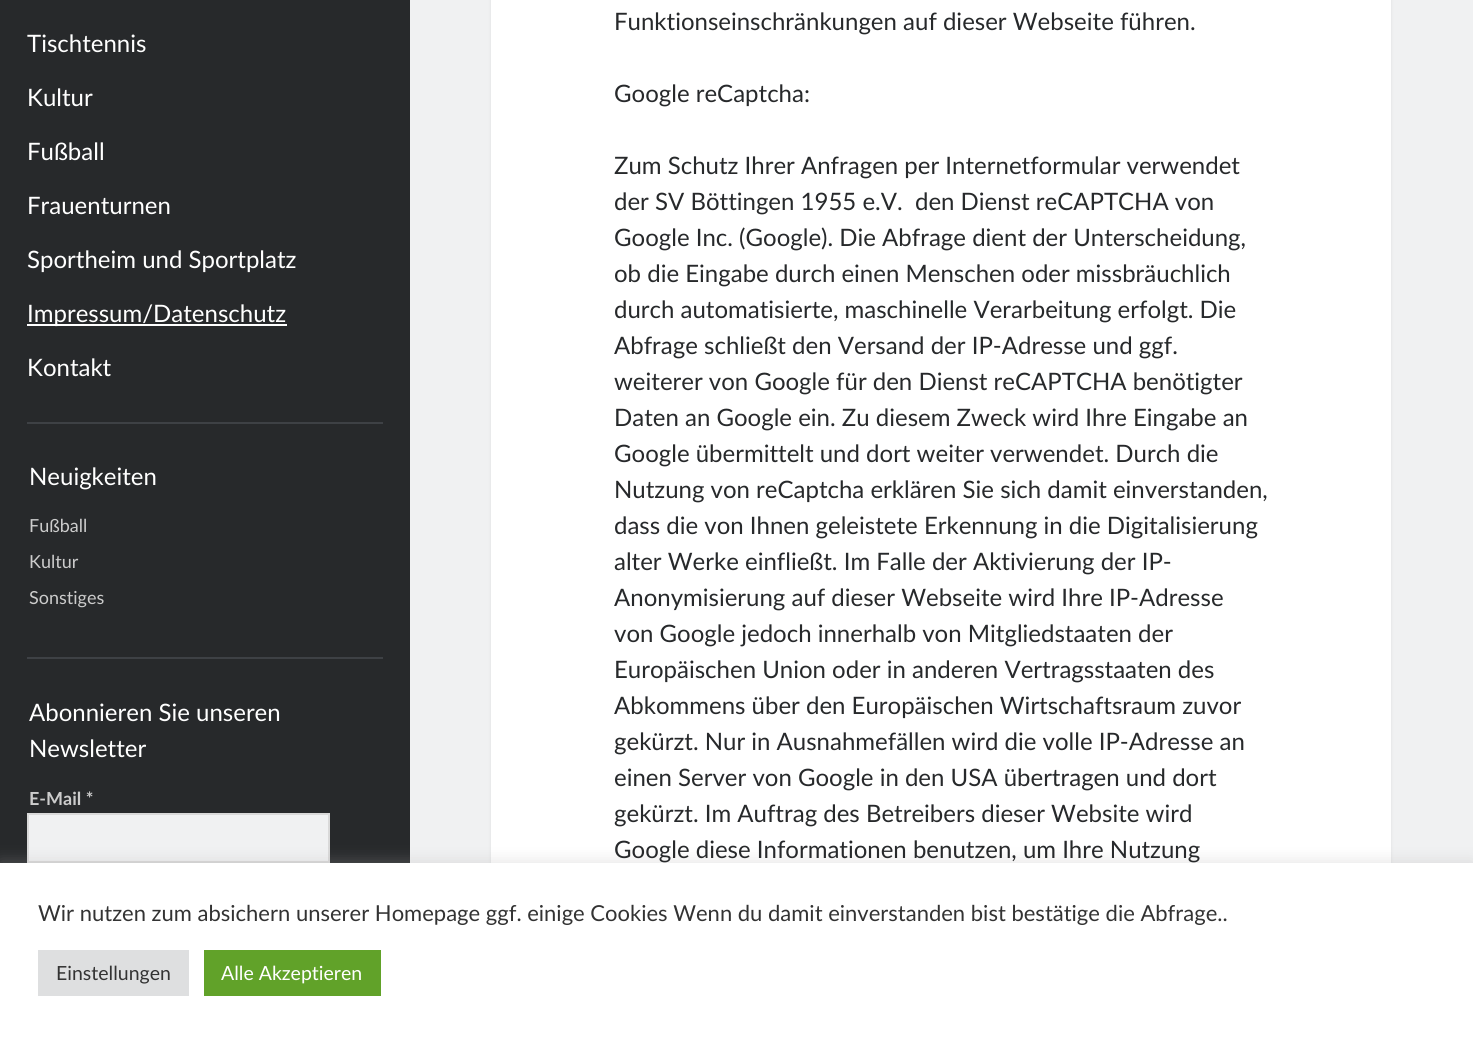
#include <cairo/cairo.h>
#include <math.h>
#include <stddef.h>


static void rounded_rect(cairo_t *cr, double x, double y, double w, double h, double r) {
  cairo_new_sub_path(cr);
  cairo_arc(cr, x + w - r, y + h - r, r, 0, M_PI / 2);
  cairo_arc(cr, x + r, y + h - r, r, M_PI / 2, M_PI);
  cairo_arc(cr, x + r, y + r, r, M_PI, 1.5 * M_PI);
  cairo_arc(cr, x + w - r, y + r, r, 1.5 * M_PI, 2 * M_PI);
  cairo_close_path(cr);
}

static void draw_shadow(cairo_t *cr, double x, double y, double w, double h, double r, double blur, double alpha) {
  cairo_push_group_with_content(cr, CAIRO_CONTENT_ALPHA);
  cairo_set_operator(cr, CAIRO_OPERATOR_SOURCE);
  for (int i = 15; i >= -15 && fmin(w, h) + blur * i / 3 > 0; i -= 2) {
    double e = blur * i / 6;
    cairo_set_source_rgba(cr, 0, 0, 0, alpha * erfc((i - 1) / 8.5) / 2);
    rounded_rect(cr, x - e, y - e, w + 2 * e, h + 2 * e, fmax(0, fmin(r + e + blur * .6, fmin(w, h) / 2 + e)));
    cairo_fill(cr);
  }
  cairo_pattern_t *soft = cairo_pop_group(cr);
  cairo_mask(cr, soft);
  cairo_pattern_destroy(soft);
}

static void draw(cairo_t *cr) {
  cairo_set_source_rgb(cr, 39 / 255.0, 41 / 255.0, 43 / 255.0);
  cairo_paint(cr);
  cairo_set_source_rgb(cr, 1, 1, 1);
  cairo_rectangle(cr, 27, 324, 260, 2);
  cairo_fill(cr);
  cairo_set_source_rgb(cr, 62 / 255.0, 65 / 255.0, 69 / 255.0);
  cairo_rectangle(cr, 27, 422, 356, 2);
  cairo_fill(cr);
  cairo_rectangle(cr, 27, 657, 356, 2);
  cairo_fill(cr);
  cairo_set_source_rgb(cr, 240 / 255.0, 241 / 255.0, 242 / 255.0);
  cairo_rectangle(cr, 28, 814, 301, 48);
  cairo_fill_preserve(cr);
  cairo_set_source_rgb(cr, 217 / 255.0, 217 / 255.0, 217 / 255.0);
  cairo_stroke(cr);
  cairo_set_source_rgb(cr, 240 / 255.0, 241 / 255.0, 242 / 255.0);
  cairo_rectangle(cr, 410, 0, 1063, 863);
  cairo_fill(cr);
  cairo_set_source_rgb(cr, 39 / 255.0, 43 / 255.0, 47 / 255.0);
  draw_shadow(cr, 491, -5, 900, 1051, 0, 1.5, 0.1);
  cairo_set_source_rgb(cr, 1, 1, 1);
  cairo_rectangle(cr, 491, 0, 900, 863);
  cairo_fill(cr);
  cairo_set_source_rgb(cr, 172 / 255.0, 171 / 255.0, 171 / 255.0);
  draw_shadow(cr, 0, 861, 1473, 179, 0, 7.5, 0.3);
  cairo_set_source_rgb(cr, 1, 1, 1);
  cairo_rectangle(cr, 0, 863, 1473, 178);
  cairo_fill(cr);
  cairo_set_source_rgb(cr, 222 / 255.0, 223 / 255.0, 224 / 255.0);
  cairo_rectangle(cr, 38, 950, 151, 46);
  cairo_fill(cr);
  cairo_set_source_rgb(cr, 97 / 255.0, 162 / 255.0, 41 / 255.0);
  cairo_rectangle(cr, 204, 950, 177, 46);
  cairo_fill(cr);
  cairo_select_font_face(cr, "Lato", CAIRO_FONT_SLANT_NORMAL, CAIRO_FONT_WEIGHT_NORMAL);
  cairo_set_font_size(cr, 24);
  cairo_set_source_rgb(cr, 1, 1, 1);
  cairo_move_to(cr, 27, 52);
  cairo_show_text(cr, "Tischtennis");
  cairo_move_to(cr, 27, 106);
  cairo_show_text(cr, "Kultur");
  cairo_move_to(cr, 27, 160);
  cairo_show_text(cr, "Fußball");
  cairo_move_to(cr, 27, 214);
  cairo_show_text(cr, "Frauenturnen");
  cairo_move_to(cr, 27, 268);
  cairo_show_text(cr, "Sportheim und Sportplatz");
  cairo_move_to(cr, 27, 322);
  cairo_show_text(cr, "Impressum/Datenschutz");
  cairo_move_to(cr, 27, 376);
  cairo_show_text(cr, "Kontakt");
  cairo_move_to(cr, 29, 485);
  cairo_show_text(cr, "Neuigkeiten");
  cairo_set_font_size(cr, 18);
  cairo_set_source_rgb(cr, 204 / 255.0, 204 / 255.0, 204 / 255.0);
  cairo_move_to(cr, 29, 532);
  cairo_show_text(cr, "Fußball");
  cairo_move_to(cr, 29, 568);
  cairo_show_text(cr, "Kultur");
  cairo_move_to(cr, 29, 604);
  cairo_show_text(cr, "Sonstiges");
  cairo_set_font_size(cr, 24);
  cairo_set_source_rgb(cr, 1, 1, 1);
  cairo_move_to(cr, 29, 721);
  cairo_show_text(cr, "Abonnieren Sie unseren");
  cairo_move_to(cr, 29, 757);
  cairo_show_text(cr, "Newsletter");
  cairo_select_font_face(cr, "Lato", CAIRO_FONT_SLANT_NORMAL, CAIRO_FONT_WEIGHT_BOLD);
  cairo_set_font_size(cr, 18);
  cairo_set_source_rgb(cr, 204 / 255.0, 204 / 255.0, 204 / 255.0);
  cairo_move_to(cr, 29, 805);
  cairo_show_text(cr, "E-Mail *");
  cairo_select_font_face(cr, "Lato", CAIRO_FONT_SLANT_NORMAL, CAIRO_FONT_WEIGHT_NORMAL);
  cairo_set_font_size(cr, 24);
  cairo_set_source_rgb(cr, 39 / 255.0, 41 / 255.0, 43 / 255.0);
  cairo_move_to(cr, 614, 30);
  cairo_show_text(cr, "Funktionseinschränkungen auf dieser Webseite führen.");
  cairo_move_to(cr, 614, 102);
  cairo_show_text(cr, "Google reCaptcha:");
  cairo_move_to(cr, 614, 174);
  cairo_show_text(cr, "Zum Schutz Ihrer Anfragen per Internetformular verwendet");
  cairo_move_to(cr, 614, 210);
  cairo_show_text(cr, "der SV Böttingen 1955 e.V.  den Dienst reCAPTCHA von");
  cairo_move_to(cr, 614, 246);
  cairo_show_text(cr, "Google Inc. (Google). Die Abfrage dient der Unterscheidung,");
  cairo_move_to(cr, 614, 282);
  cairo_show_text(cr, "ob die Eingabe durch einen Menschen oder missbräuchlich");
  cairo_move_to(cr, 614, 318);
  cairo_show_text(cr, "durch automatisierte, maschinelle Verarbeitung erfolgt. Die");
  cairo_move_to(cr, 614, 354);
  cairo_show_text(cr, "Abfrage schließt den Versand der IP-Adresse und ggf.");
  cairo_move_to(cr, 614, 390);
  cairo_show_text(cr, "weiterer von Google für den Dienst reCAPTCHA benötigter");
  cairo_move_to(cr, 614, 426);
  cairo_show_text(cr, "Daten an Google ein. Zu diesem Zweck wird Ihre Eingabe an");
  cairo_move_to(cr, 614, 462);
  cairo_show_text(cr, "Google übermittelt und dort weiter verwendet. Durch die");
  cairo_move_to(cr, 614, 498);
  cairo_show_text(cr, "Nutzung von reCaptcha erklären Sie sich damit einverstanden,");
  cairo_move_to(cr, 614, 534);
  cairo_show_text(cr, "dass die von Ihnen geleistete Erkennung in die Digitalisierung");
  cairo_move_to(cr, 614, 570);
  cairo_show_text(cr, "alter Werke einfließt. Im Falle der Aktivierung der IP-");
  cairo_move_to(cr, 614, 606);
  cairo_show_text(cr, "Anonymisierung auf dieser Webseite wird Ihre IP-Adresse");
  cairo_move_to(cr, 614, 642);
  cairo_show_text(cr, "von Google jedoch innerhalb von Mitgliedstaaten der");
  cairo_move_to(cr, 614, 678);
  cairo_show_text(cr, "Europäischen Union oder in anderen Vertragsstaaten des");
  cairo_move_to(cr, 614, 714);
  cairo_show_text(cr, "Abkommens über den Europäischen Wirtschaftsraum zuvor");
  cairo_move_to(cr, 614, 750);
  cairo_show_text(cr, "gekürzt. Nur in Ausnahmefällen wird die volle IP-Adresse an");
  cairo_move_to(cr, 614, 786);
  cairo_show_text(cr, "einen Server von Google in den USA übertragen und dort");
  cairo_move_to(cr, 614, 822);
  cairo_show_text(cr, "gekürzt. Im Auftrag des Betreibers dieser Website wird");
  cairo_move_to(cr, 614, 858);
  cairo_show_text(cr, "Google diese Informationen benutzen, um Ihre Nutzung");
  cairo_set_font_size(cr, 22);
  cairo_set_source_rgb(cr, 51 / 255.0, 51 / 255.0, 51 / 255.0);
  cairo_move_to(cr, 38, 921);
  cairo_show_text(cr, "Wir nutzen zum absichern unserer Homepage ggf. einige Cookies Wenn du damit einverstanden bist bestätige die Abfrage..");
  cairo_set_font_size(cr, 19.5);
  cairo_move_to(cr, 56, 980);
  cairo_show_text(cr, "Einstellungen");
  cairo_set_source_rgb(cr, 1, 1, 1);
  cairo_move_to(cr, 221, 980);
  cairo_show_text(cr, "Alle Akzeptieren");
}

int main(void) {
  cairo_surface_t *surface = cairo_image_surface_create(CAIRO_FORMAT_RGB24, 1473, 1041);
  cairo_t *cr = cairo_create(surface);
  cairo_font_options_t *options = cairo_font_options_create();
  cairo_font_options_set_hint_metrics(options, CAIRO_HINT_METRICS_OFF);
  cairo_font_options_set_hint_style(options, CAIRO_HINT_STYLE_NONE);
  cairo_set_font_options(cr, options);
  cairo_set_miter_limit(cr, 4);
  draw(cr);
  cairo_surface_write_to_png(surface, "out.png");
  cairo_font_options_destroy(options);
  cairo_destroy(cr);
  cairo_surface_destroy(surface);
  return 0;
}
